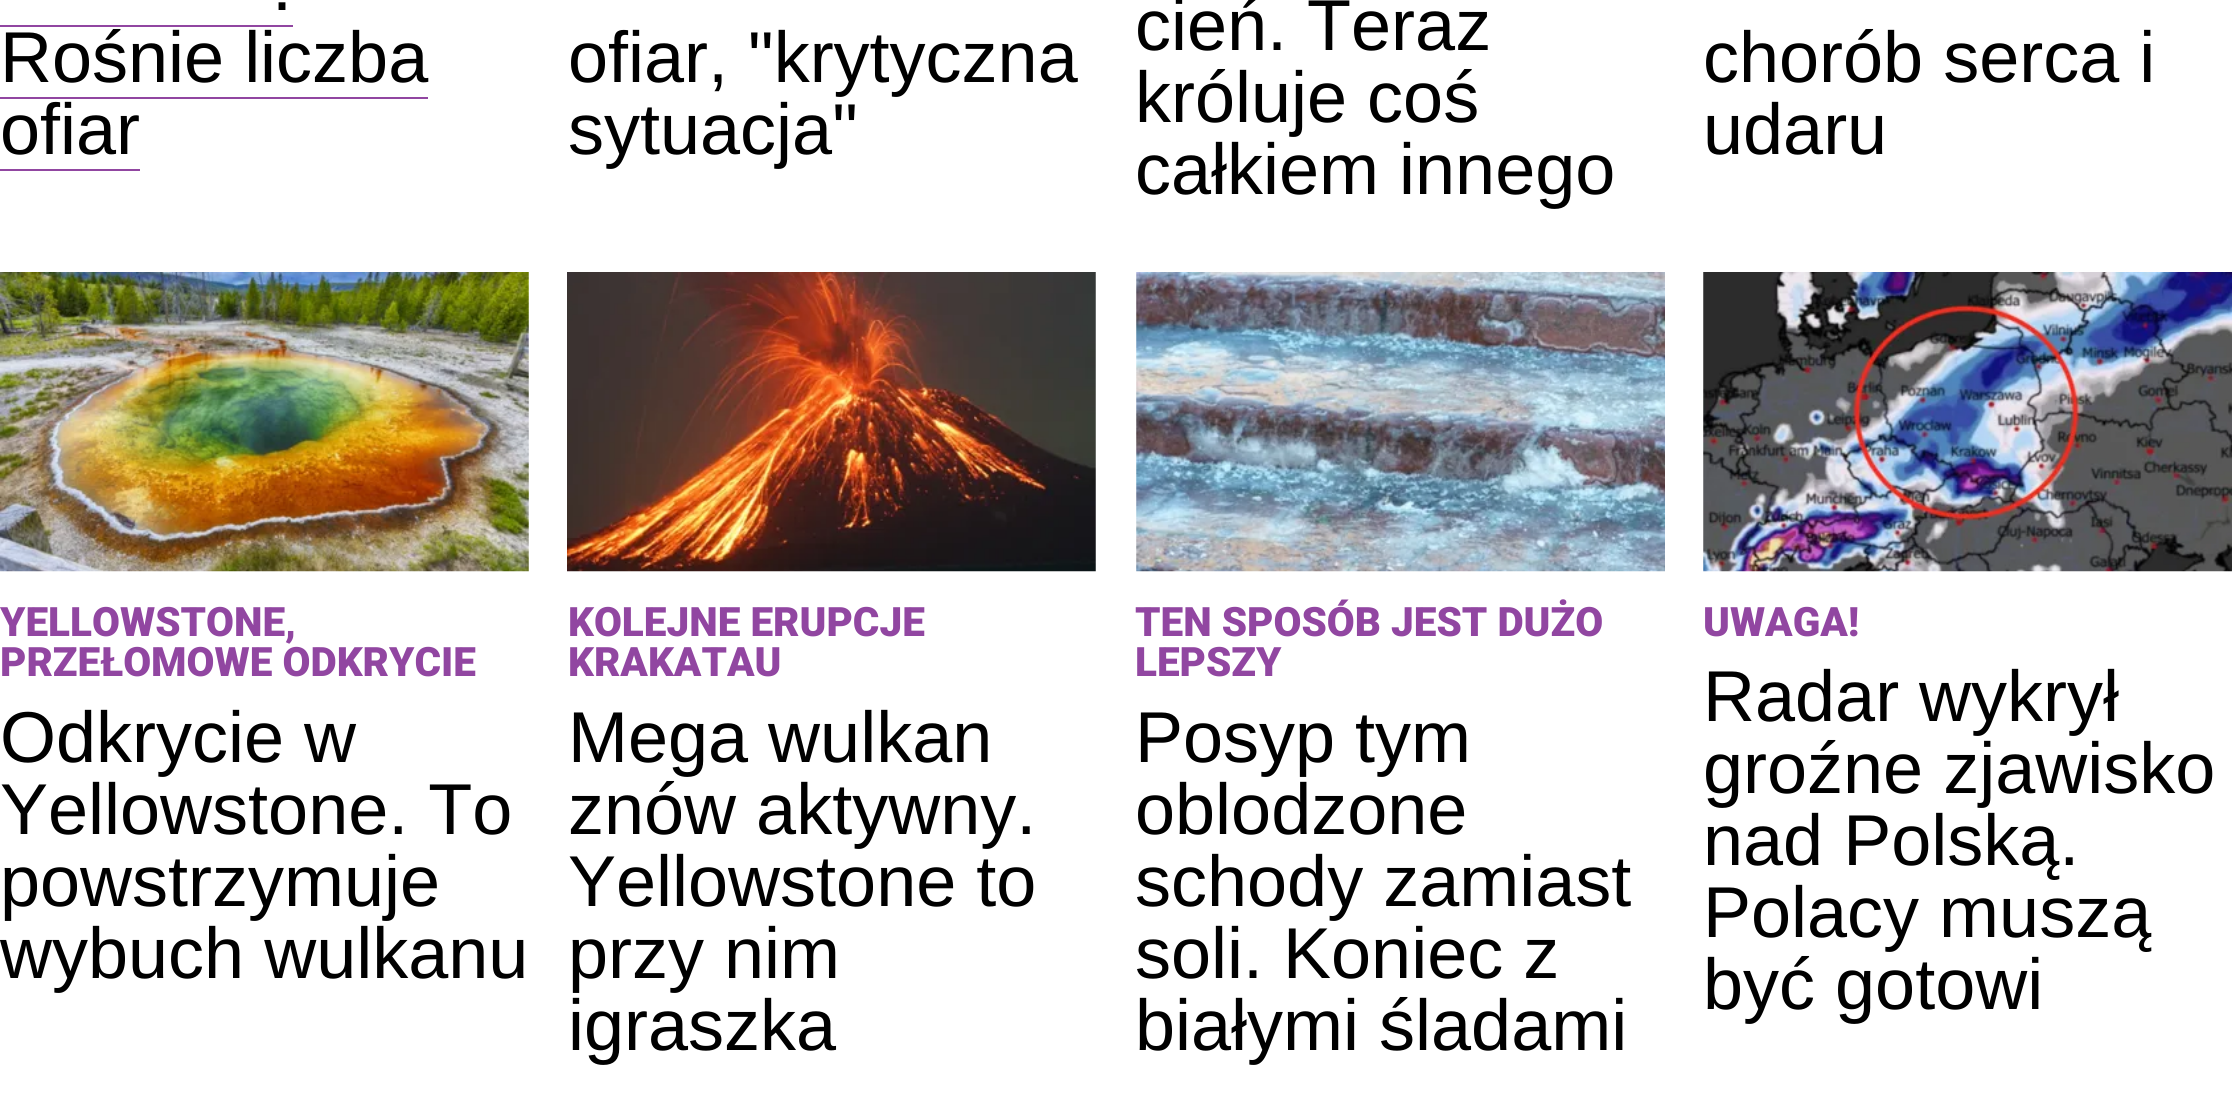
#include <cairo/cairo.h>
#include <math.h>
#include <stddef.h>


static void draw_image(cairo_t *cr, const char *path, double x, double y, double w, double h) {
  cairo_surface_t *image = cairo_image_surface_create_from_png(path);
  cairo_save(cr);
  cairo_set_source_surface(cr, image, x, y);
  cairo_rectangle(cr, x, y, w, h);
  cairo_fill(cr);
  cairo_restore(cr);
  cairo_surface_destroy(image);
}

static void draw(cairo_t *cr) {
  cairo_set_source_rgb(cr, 1, 1, 1);
  cairo_paint(cr);
  cairo_set_source_rgb(cr, 145 / 255.0, 70 / 255.0, 161 / 255.0);
  cairo_rectangle(cr, 0, 25, 293, 2);
  cairo_fill(cr);
  cairo_rectangle(cr, 0, 97, 428, 2);
  cairo_fill(cr);
  cairo_rectangle(cr, 0, 169, 140, 2);
  cairo_fill(cr);
  draw_image(cr, "images/1.png", 0, 272, 529, 300);
  draw_image(cr, "images/2.png", 567, 272, 529, 300);
  draw_image(cr, "images/3.png", 1136, 272, 529, 300);
  draw_image(cr, "images/4.png", 1703, 272, 529, 300);
  cairo_select_font_face(cr, "Liberation Sans", CAIRO_FONT_SLANT_NORMAL, CAIRO_FONT_WEIGHT_NORMAL);
  cairo_set_font_size(cr, 72);
  cairo_set_source_rgb(cr, 0, 0, 0);
  cairo_move_to(cr, 272, 10);
  cairo_show_text(cr, ".");
  cairo_move_to(cr, 0, 82);
  cairo_show_text(cr, "Rośnie liczba");
  cairo_move_to(cr, 0, 154);
  cairo_show_text(cr, "ofiar");
  cairo_move_to(cr, 568, 82);
  cairo_show_text(cr, "ofiar, \"krytyczna");
  cairo_move_to(cr, 568, 154);
  cairo_show_text(cr, "sytuacja\"");
  cairo_move_to(cr, 1135, 50);
  cairo_show_text(cr, "cień. Teraz");
  cairo_move_to(cr, 1135, 122);
  cairo_show_text(cr, "króluje coś");
  cairo_move_to(cr, 1135, 194);
  cairo_show_text(cr, "całkiem innego");
  cairo_move_to(cr, 1703, 82);
  cairo_show_text(cr, "chorób serca i");
  cairo_move_to(cr, 1703, 154);
  cairo_show_text(cr, "udaru");
  cairo_select_font_face(cr, "Roboto Black", CAIRO_FONT_SLANT_NORMAL, CAIRO_FONT_WEIGHT_NORMAL);
  cairo_set_font_size(cr, 40.5);
  cairo_set_source_rgb(cr, 145 / 255.0, 70 / 255.0, 161 / 255.0);
  cairo_move_to(cr, 0, 636);
  cairo_show_text(cr, "YELLOWSTONE,");
  cairo_move_to(cr, 0, 676);
  cairo_show_text(cr, "PRZEŁOMOWE ODKRYCIE");
  cairo_select_font_face(cr, "Liberation Sans", CAIRO_FONT_SLANT_NORMAL, CAIRO_FONT_WEIGHT_NORMAL);
  cairo_set_font_size(cr, 72);
  cairo_set_source_rgb(cr, 0, 0, 0);
  cairo_move_to(cr, 0, 762);
  cairo_show_text(cr, "Odkrycie w");
  cairo_move_to(cr, 0, 834);
  cairo_show_text(cr, "Yellowstone. To");
  cairo_move_to(cr, 0, 906);
  cairo_show_text(cr, "powstrzymuje");
  cairo_move_to(cr, 0, 978);
  cairo_show_text(cr, "wybuch wulkanu");
  cairo_select_font_face(cr, "Roboto Black", CAIRO_FONT_SLANT_NORMAL, CAIRO_FONT_WEIGHT_NORMAL);
  cairo_set_font_size(cr, 40.5);
  cairo_set_source_rgb(cr, 145 / 255.0, 70 / 255.0, 161 / 255.0);
  cairo_move_to(cr, 568, 636);
  cairo_show_text(cr, "KOLEJNE ERUPCJE");
  cairo_move_to(cr, 568, 676);
  cairo_show_text(cr, "KRAKATAU");
  cairo_select_font_face(cr, "Liberation Sans", CAIRO_FONT_SLANT_NORMAL, CAIRO_FONT_WEIGHT_NORMAL);
  cairo_set_font_size(cr, 72);
  cairo_set_source_rgb(cr, 0, 0, 0);
  cairo_move_to(cr, 568, 762);
  cairo_show_text(cr, "Mega wulkan");
  cairo_move_to(cr, 568, 834);
  cairo_show_text(cr, "znów aktywny.");
  cairo_move_to(cr, 568, 906);
  cairo_show_text(cr, "Yellowstone to");
  cairo_move_to(cr, 568, 978);
  cairo_show_text(cr, "przy nim");
  cairo_move_to(cr, 568, 1050);
  cairo_show_text(cr, "igraszka");
  cairo_select_font_face(cr, "Roboto Black", CAIRO_FONT_SLANT_NORMAL, CAIRO_FONT_WEIGHT_NORMAL);
  cairo_set_font_size(cr, 40.5);
  cairo_set_source_rgb(cr, 145 / 255.0, 70 / 255.0, 161 / 255.0);
  cairo_move_to(cr, 1135, 636);
  cairo_show_text(cr, "TEN SPOSÓB JEST DUŻO");
  cairo_move_to(cr, 1135, 676);
  cairo_show_text(cr, "LEPSZY");
  cairo_select_font_face(cr, "Liberation Sans", CAIRO_FONT_SLANT_NORMAL, CAIRO_FONT_WEIGHT_NORMAL);
  cairo_set_font_size(cr, 72);
  cairo_set_source_rgb(cr, 0, 0, 0);
  cairo_move_to(cr, 1135, 762);
  cairo_show_text(cr, "Posyp tym");
  cairo_move_to(cr, 1135, 834);
  cairo_show_text(cr, "oblodzone");
  cairo_move_to(cr, 1135, 906);
  cairo_show_text(cr, "schody zamiast");
  cairo_move_to(cr, 1135, 978);
  cairo_show_text(cr, "soli. Koniec z");
  cairo_move_to(cr, 1135, 1050);
  cairo_show_text(cr, "białymi śladami");
  cairo_select_font_face(cr, "Roboto Black", CAIRO_FONT_SLANT_NORMAL, CAIRO_FONT_WEIGHT_NORMAL);
  cairo_set_font_size(cr, 40.5);
  cairo_set_source_rgb(cr, 145 / 255.0, 70 / 255.0, 161 / 255.0);
  cairo_move_to(cr, 1703, 636);
  cairo_show_text(cr, "UWAGA!");
  cairo_select_font_face(cr, "Liberation Sans", CAIRO_FONT_SLANT_NORMAL, CAIRO_FONT_WEIGHT_NORMAL);
  cairo_set_font_size(cr, 72);
  cairo_set_source_rgb(cr, 0, 0, 0);
  cairo_move_to(cr, 1703, 721);
  cairo_show_text(cr, "Radar wykrył");
  cairo_move_to(cr, 1703, 793);
  cairo_show_text(cr, "groźne zjawisko");
  cairo_move_to(cr, 1703, 865);
  cairo_show_text(cr, "nad Polską.");
  cairo_move_to(cr, 1703, 937);
  cairo_show_text(cr, "Polacy muszą");
  cairo_move_to(cr, 1703, 1009);
  cairo_show_text(cr, "być gotowi");
}

int main(void) {
  cairo_surface_t *surface = cairo_image_surface_create(CAIRO_FORMAT_RGB24, 2232, 1113);
  cairo_t *cr = cairo_create(surface);
  cairo_font_options_t *options = cairo_font_options_create();
  cairo_font_options_set_hint_metrics(options, CAIRO_HINT_METRICS_OFF);
  cairo_font_options_set_hint_style(options, CAIRO_HINT_STYLE_NONE);
  cairo_set_font_options(cr, options);
  cairo_set_miter_limit(cr, 4);
  draw(cr);
  cairo_surface_write_to_png(surface, "out.png");
  cairo_font_options_destroy(options);
  cairo_destroy(cr);
  cairo_surface_destroy(surface);
  return 0;
}
